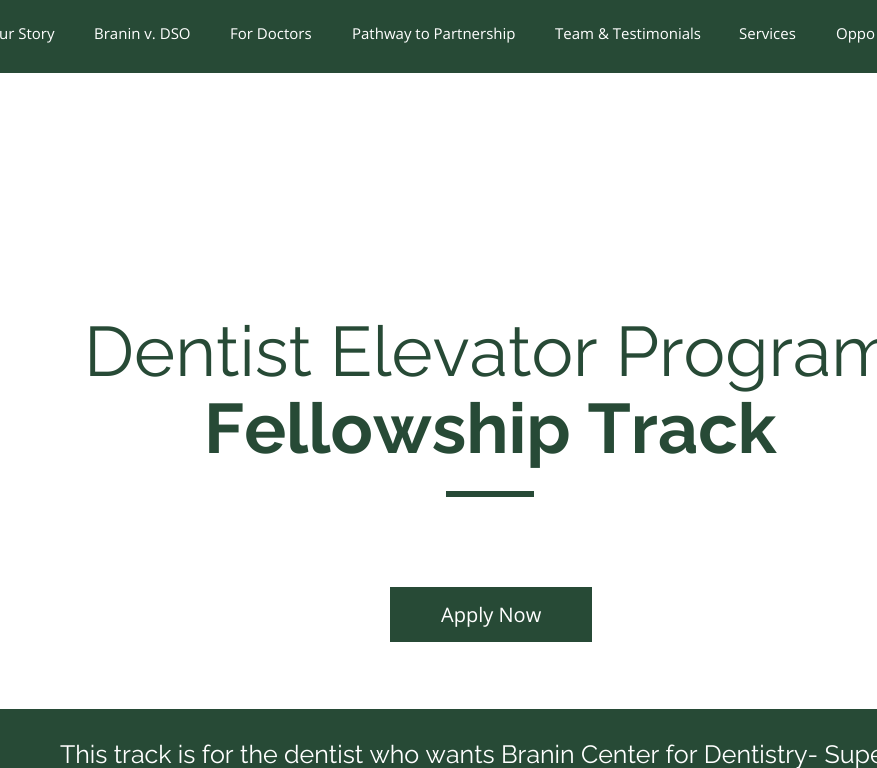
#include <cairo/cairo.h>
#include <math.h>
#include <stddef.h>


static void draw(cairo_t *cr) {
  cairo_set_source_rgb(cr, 1, 1, 1);
  cairo_paint(cr);
  cairo_set_source_rgb(cr, 39 / 255.0, 74 / 255.0, 54 / 255.0);
  cairo_rectangle(cr, 0, 0, 877, 73);
  cairo_fill(cr);
  cairo_rectangle(cr, 446, 491, 88, 6);
  cairo_fill(cr);
  cairo_rectangle(cr, 390, 587, 202, 55);
  cairo_fill(cr);
  cairo_rectangle(cr, 0, 709, 877, 59);
  cairo_fill(cr);
  cairo_select_font_face(cr, "Open Sans", CAIRO_FONT_SLANT_NORMAL, CAIRO_FONT_WEIGHT_NORMAL);
  cairo_set_font_size(cr, 15);
  cairo_set_source_rgb(cr, 1, 1, 1);
  cairo_move_to(cr, -1, 39);
  cairo_show_text(cr, "ur Story");
  cairo_move_to(cr, 94, 39);
  cairo_show_text(cr, "Branin v. DSO");
  cairo_move_to(cr, 230, 39);
  cairo_show_text(cr, "For Doctors");
  cairo_move_to(cr, 352, 39);
  cairo_show_text(cr, "Pathway to Partnership");
  cairo_move_to(cr, 555, 39);
  cairo_show_text(cr, "Team & Testimonials");
  cairo_move_to(cr, 739, 39);
  cairo_show_text(cr, "Services");
  cairo_move_to(cr, 836, 39);
  cairo_show_text(cr, "Oppo");
  cairo_select_font_face(cr, "Raleway", CAIRO_FONT_SLANT_NORMAL, CAIRO_FONT_WEIGHT_NORMAL);
  cairo_set_font_size(cr, 70);
  cairo_set_source_rgb(cr, 39 / 255.0, 74 / 255.0, 54 / 255.0);
  cairo_move_to(cr, 84, 376);
  cairo_show_text(cr, "Dentist Elevator Program");
  cairo_select_font_face(cr, "Raleway", CAIRO_FONT_SLANT_NORMAL, CAIRO_FONT_WEIGHT_BOLD);
  cairo_move_to(cr, 204, 453);
  cairo_show_text(cr, "Fellowship Track");
  cairo_select_font_face(cr, "Open Sans", CAIRO_FONT_SLANT_NORMAL, CAIRO_FONT_WEIGHT_NORMAL);
  cairo_set_font_size(cr, 20);
  cairo_set_source_rgb(cr, 1, 1, 1);
  cairo_move_to(cr, 441, 622);
  cairo_show_text(cr, "Apply Now");
  cairo_select_font_face(cr, "Raleway", CAIRO_FONT_SLANT_NORMAL, CAIRO_FONT_WEIGHT_NORMAL);
  cairo_set_font_size(cr, 25);
  cairo_move_to(cr, 60, 763);
  cairo_show_text(cr, "This track is for the dentist who wants Branin Center for Dentistry- Supe");
}

int main(void) {
  cairo_surface_t *surface = cairo_image_surface_create(CAIRO_FORMAT_RGB24, 877, 768);
  cairo_t *cr = cairo_create(surface);
  cairo_font_options_t *options = cairo_font_options_create();
  cairo_font_options_set_hint_metrics(options, CAIRO_HINT_METRICS_OFF);
  cairo_font_options_set_hint_style(options, CAIRO_HINT_STYLE_NONE);
  cairo_set_font_options(cr, options);
  cairo_set_miter_limit(cr, 4);
  draw(cr);
  cairo_surface_write_to_png(surface, "out.png");
  cairo_font_options_destroy(options);
  cairo_destroy(cr);
  cairo_surface_destroy(surface);
  return 0;
}
